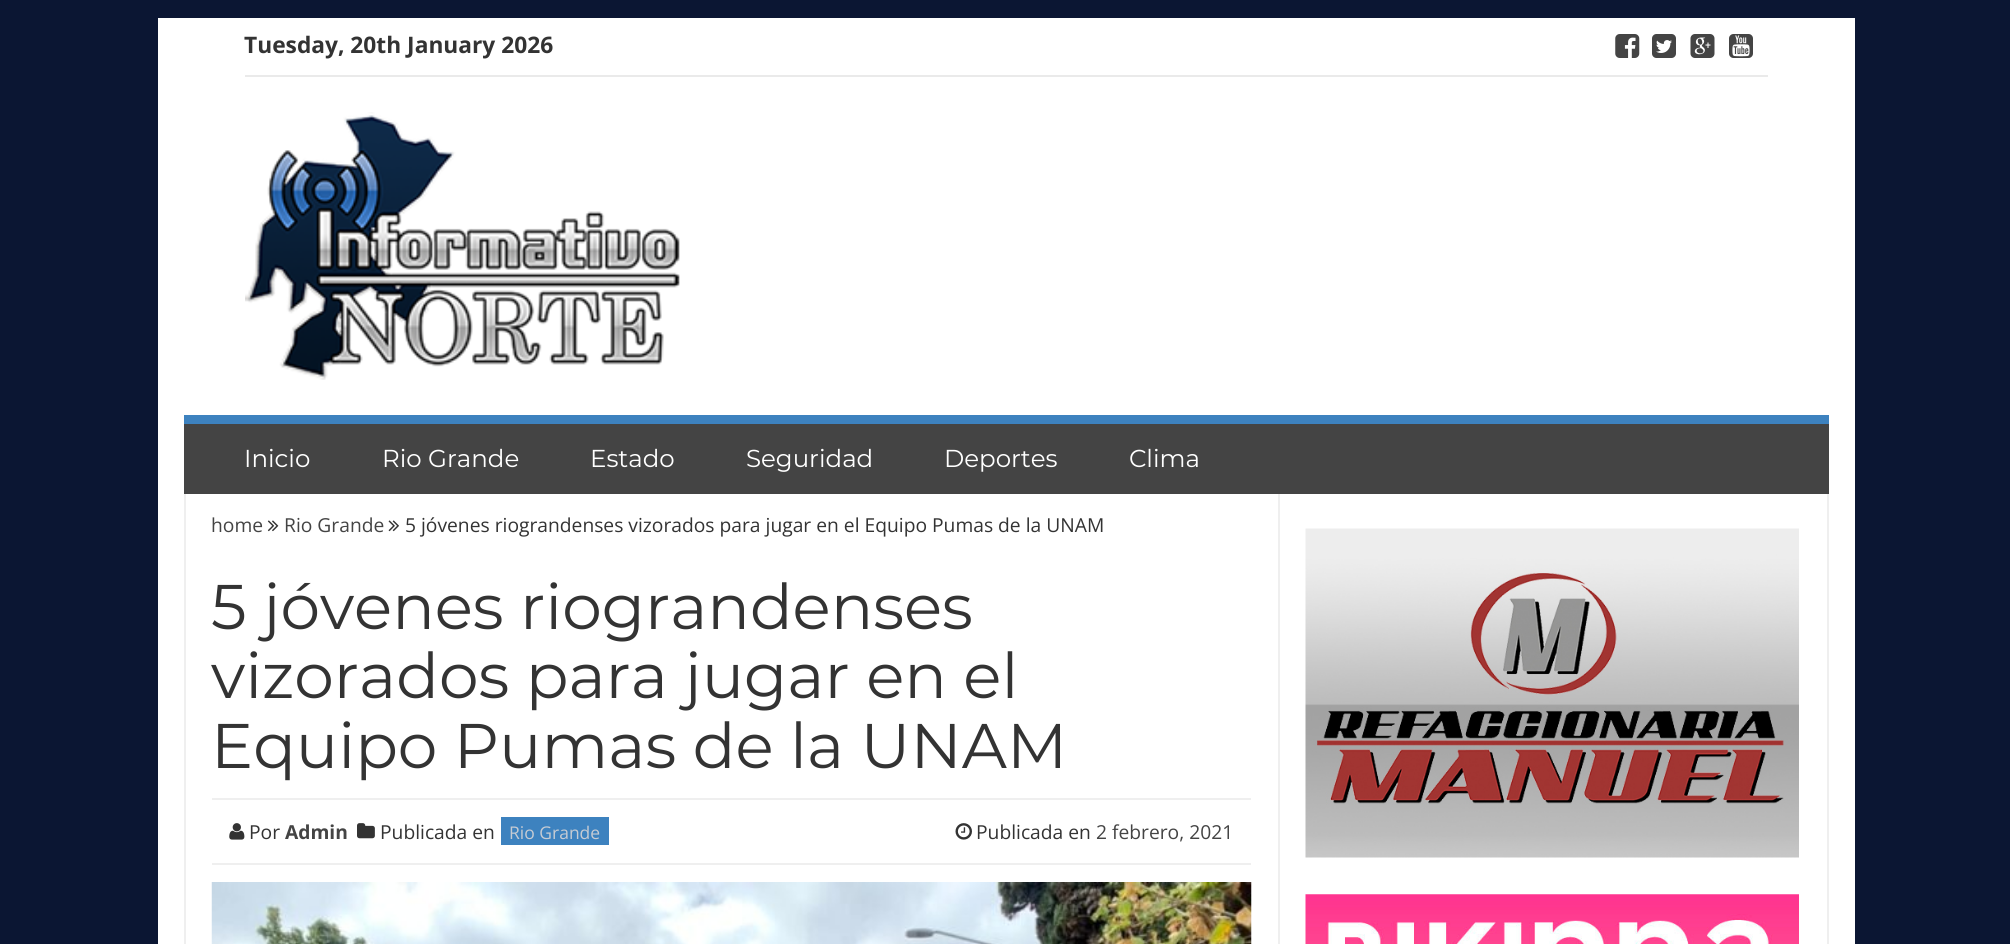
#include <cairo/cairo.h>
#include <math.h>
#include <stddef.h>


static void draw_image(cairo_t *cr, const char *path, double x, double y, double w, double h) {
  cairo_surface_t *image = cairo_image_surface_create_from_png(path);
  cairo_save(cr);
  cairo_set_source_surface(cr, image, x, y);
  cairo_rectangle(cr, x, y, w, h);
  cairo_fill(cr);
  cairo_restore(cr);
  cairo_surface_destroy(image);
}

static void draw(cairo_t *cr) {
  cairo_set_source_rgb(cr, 11 / 255.0, 22 / 255.0, 51 / 255.0);
  cairo_paint(cr);
  cairo_set_source_rgb(cr, 1, 1, 1);
  cairo_rectangle(cr, 158, 18, 1697, 926);
  cairo_fill(cr);
  cairo_set_source_rgb(cr, 234 / 255.0, 234 / 255.0, 234 / 255.0);
  cairo_rectangle(cr, 245, 75, 1523, 2);
  cairo_fill(cr);
  draw_image(cr, "images/1.png", 1615, 34, 25, 24);
  draw_image(cr, "images/2.png", 1652, 34, 24, 24);
  draw_image(cr, "images/3.png", 1690, 34, 25, 24);
  draw_image(cr, "images/4.png", 1729, 34, 24, 24);
  draw_image(cr, "images/5.png", 245, 112, 435, 268);
  cairo_set_source_rgb(cr, 68 / 255.0, 68 / 255.0, 68 / 255.0);
  cairo_rectangle(cr, 184, 424, 1645, 70);
  cairo_fill(cr);
  cairo_set_source_rgb(cr, 61 / 255.0, 130 / 255.0, 191 / 255.0);
  cairo_rectangle(cr, 184, 415, 1645, 9);
  cairo_fill(cr);
  cairo_set_source_rgb(cr, 239 / 255.0, 239 / 255.0, 239 / 255.0);
  cairo_rectangle(cr, 1827, 494, 2, 450);
  cairo_fill(cr);
  cairo_rectangle(cr, 184, 494, 2, 450);
  cairo_fill(cr);
  cairo_rectangle(cr, 1278, 494, 2, 450);
  cairo_fill(cr);
  draw_image(cr, "images/6.png", 267, 520, 12, 12);
  draw_image(cr, "images/7.png", 388, 520, 11, 12);
  cairo_rectangle(cr, 212, 798, 1039, 2);
  cairo_fill(cr);
  cairo_rectangle(cr, 212, 863, 1039, 2);
  cairo_fill(cr);
  draw_image(cr, "images/8.png", 229, 823, 16, 17);
  draw_image(cr, "images/9.png", 357, 823, 18, 16);
  cairo_set_source_rgb(cr, 61 / 255.0, 130 / 255.0, 191 / 255.0);
  cairo_rectangle(cr, 501, 817, 108, 28);
  cairo_fill(cr);
  draw_image(cr, "images/10.png", 955, 823, 17, 17);
  draw_image(cr, "images/11.png", 211, 882, 1041, 62);
  draw_image(cr, "images/12.png", 1305, 528, 494, 330);
  draw_image(cr, "images/13.png", 1305, 894, 494, 50);
  cairo_select_font_face(cr, "Open Sans", CAIRO_FONT_SLANT_NORMAL, CAIRO_FONT_WEIGHT_BOLD);
  cairo_set_font_size(cr, 22.75);
  cairo_set_source_rgb(cr, 51 / 255.0, 51 / 255.0, 51 / 255.0);
  cairo_move_to(cr, 244, 53);
  cairo_show_text(cr, "Tuesday, 20th January 2026");
  cairo_select_font_face(cr, "Montserrat", CAIRO_FONT_SLANT_NORMAL, CAIRO_FONT_WEIGHT_NORMAL);
  cairo_set_font_size(cr, 24.5);
  cairo_set_source_rgb(cr, 1, 1, 1);
  cairo_move_to(cr, 244, 467);
  cairo_show_text(cr, "Inicio");
  cairo_move_to(cr, 382, 467);
  cairo_show_text(cr, "Rio Grande");
  cairo_move_to(cr, 590, 467);
  cairo_show_text(cr, "Estado");
  cairo_move_to(cr, 746, 467);
  cairo_show_text(cr, "Seguridad");
  cairo_move_to(cr, 944, 467);
  cairo_show_text(cr, "Deportes");
  cairo_move_to(cr, 1129, 467);
  cairo_show_text(cr, "Clima");
  cairo_select_font_face(cr, "Open Sans", CAIRO_FONT_SLANT_NORMAL, CAIRO_FONT_WEIGHT_NORMAL);
  cairo_set_font_size(cr, 19.25);
  cairo_set_source_rgb(cr, 68 / 255.0, 68 / 255.0, 68 / 255.0);
  cairo_move_to(cr, 211, 532);
  cairo_show_text(cr, "home");
  cairo_move_to(cr, 284, 532);
  cairo_show_text(cr, "Rio Grande");
  cairo_set_source_rgb(cr, 51 / 255.0, 51 / 255.0, 51 / 255.0);
  cairo_move_to(cr, 405, 532);
  cairo_show_text(cr, "5 jóvenes riograndenses vizorados para jugar en el Equipo Pumas de la UNAM");
  cairo_select_font_face(cr, "Montserrat", CAIRO_FONT_SLANT_NORMAL, CAIRO_FONT_WEIGHT_NORMAL);
  cairo_set_font_size(cr, 63);
  cairo_move_to(cr, 211, 629);
  cairo_show_text(cr, "5 jóvenes riograndenses");
  cairo_move_to(cr, 211, 698);
  cairo_show_text(cr, "vizorados para jugar en el");
  cairo_move_to(cr, 211, 768);
  cairo_show_text(cr, "Equipo Pumas de la UNAM");
  cairo_select_font_face(cr, "Open Sans", CAIRO_FONT_SLANT_NORMAL, CAIRO_FONT_WEIGHT_NORMAL);
  cairo_set_font_size(cr, 19.25);
  cairo_move_to(cr, 249, 839);
  cairo_show_text(cr, "Por");
  cairo_select_font_face(cr, "Open Sans", CAIRO_FONT_SLANT_NORMAL, CAIRO_FONT_WEIGHT_BOLD);
  cairo_set_source_rgb(cr, 68 / 255.0, 68 / 255.0, 68 / 255.0);
  cairo_move_to(cr, 285, 839);
  cairo_show_text(cr, "Admin");
  cairo_select_font_face(cr, "Open Sans", CAIRO_FONT_SLANT_NORMAL, CAIRO_FONT_WEIGHT_NORMAL);
  cairo_set_source_rgb(cr, 51 / 255.0, 51 / 255.0, 51 / 255.0);
  cairo_move_to(cr, 380, 839);
  cairo_show_text(cr, "Publicada en");
  cairo_set_font_size(cr, 17.5);
  cairo_set_source_rgb(cr, 198 / 255.0, 203 / 255.0, 211 / 255.0);
  cairo_move_to(cr, 509, 839);
  cairo_show_text(cr, "Rio Grande");
  cairo_set_font_size(cr, 19.25);
  cairo_set_source_rgb(cr, 51 / 255.0, 51 / 255.0, 51 / 255.0);
  cairo_move_to(cr, 976, 839);
  cairo_show_text(cr, "Publicada en");
  cairo_set_source_rgb(cr, 68 / 255.0, 68 / 255.0, 68 / 255.0);
  cairo_move_to(cr, 1096, 839);
  cairo_show_text(cr, "2 febrero, 2021");
}

int main(void) {
  cairo_surface_t *surface = cairo_image_surface_create(CAIRO_FORMAT_RGB24, 2010, 944);
  cairo_t *cr = cairo_create(surface);
  cairo_font_options_t *options = cairo_font_options_create();
  cairo_font_options_set_hint_metrics(options, CAIRO_HINT_METRICS_OFF);
  cairo_font_options_set_hint_style(options, CAIRO_HINT_STYLE_NONE);
  cairo_set_font_options(cr, options);
  cairo_set_miter_limit(cr, 4);
  draw(cr);
  cairo_surface_write_to_png(surface, "out.png");
  cairo_font_options_destroy(options);
  cairo_destroy(cr);
  cairo_surface_destroy(surface);
  return 0;
}
